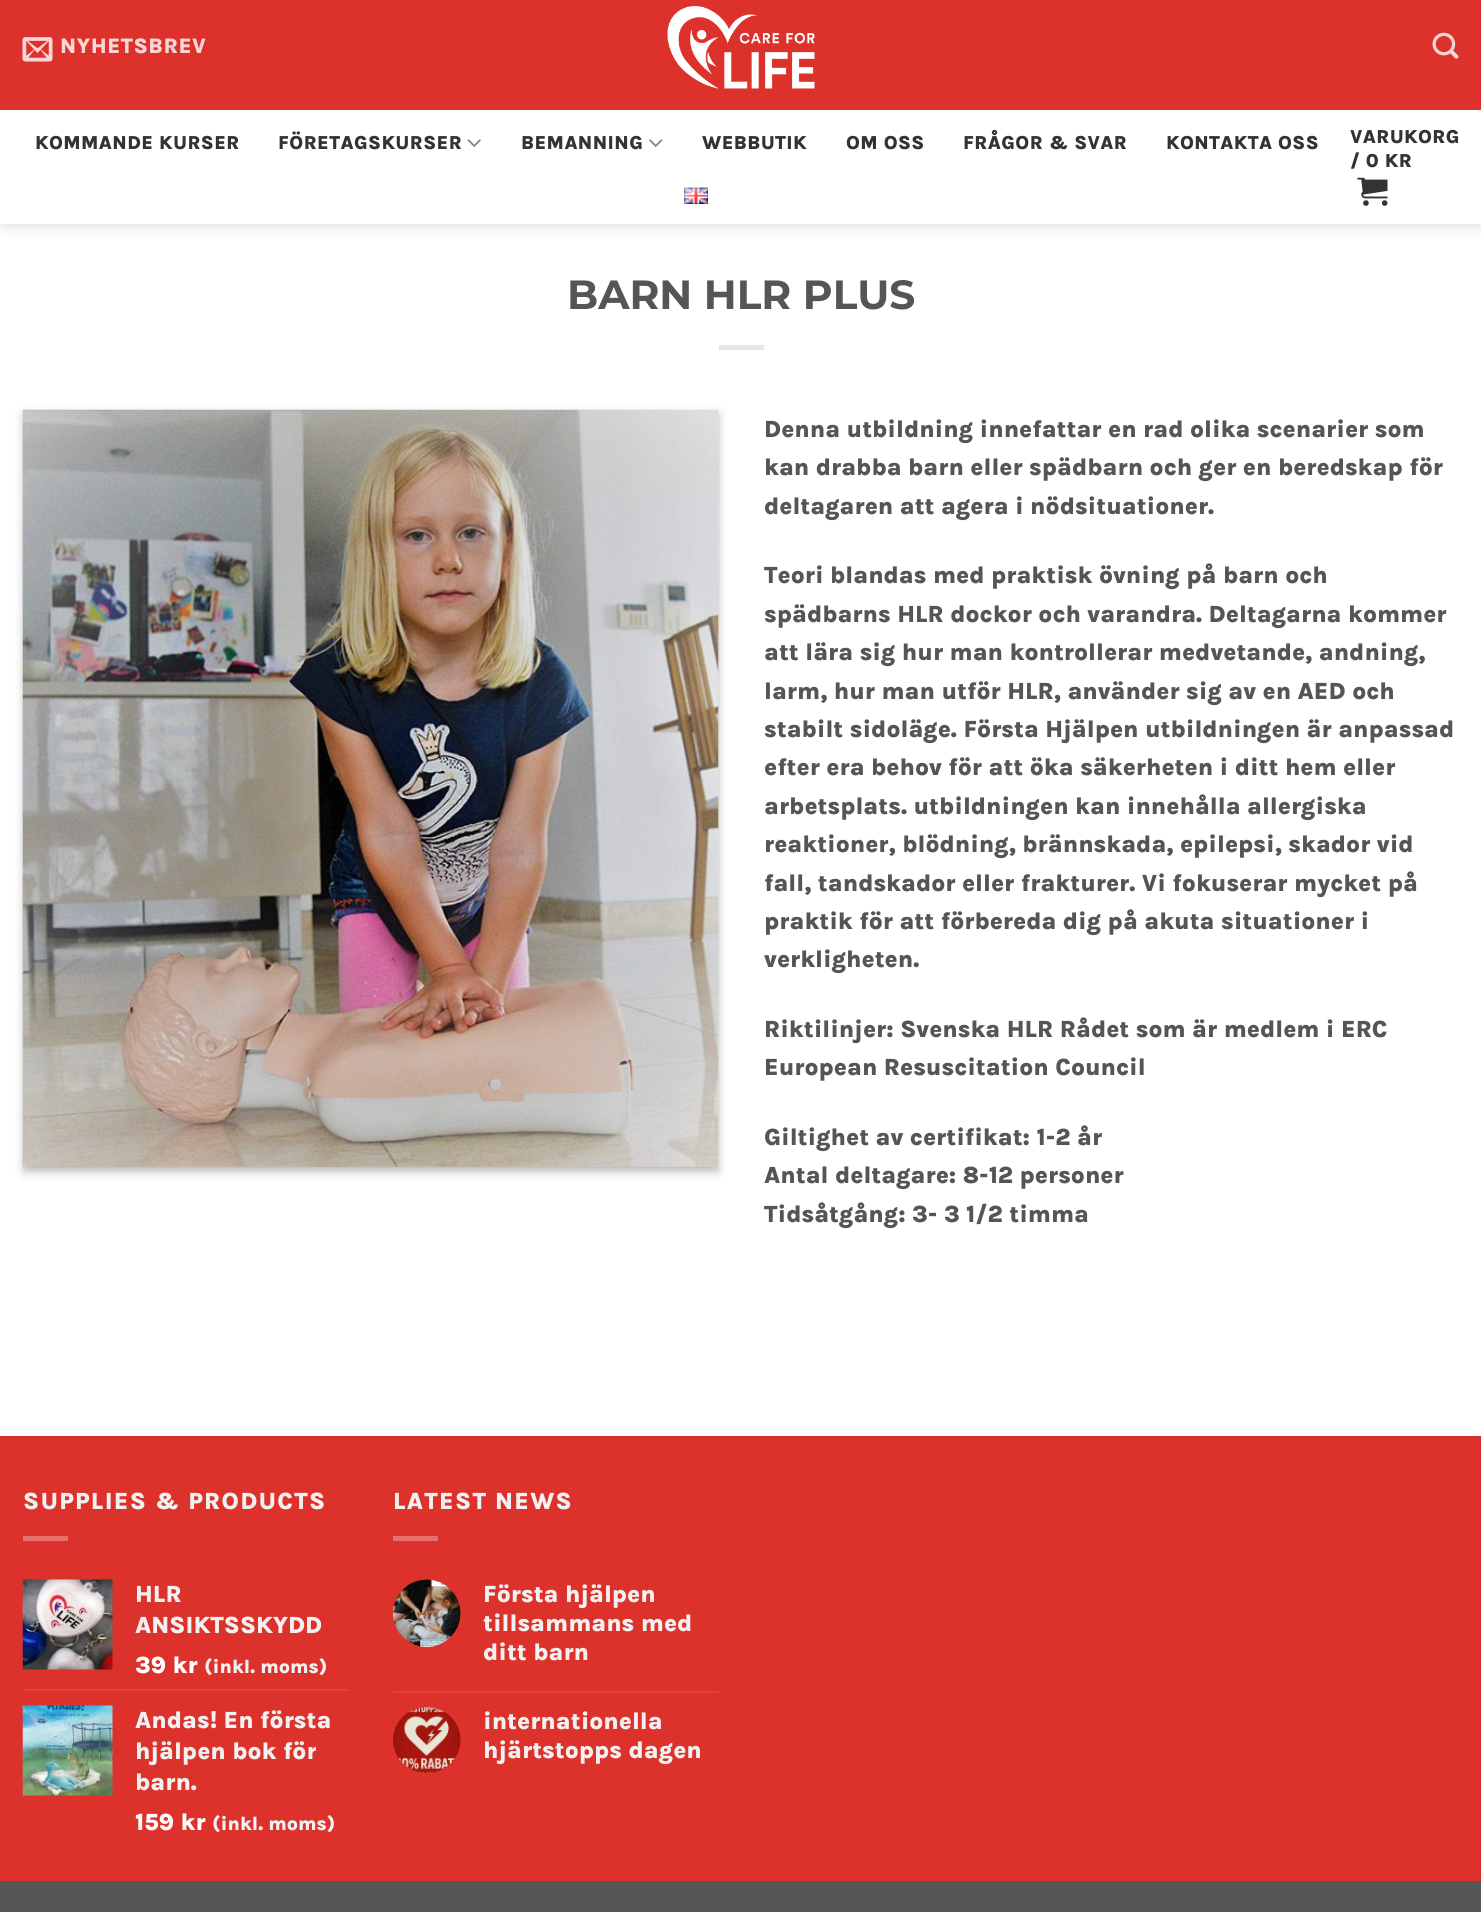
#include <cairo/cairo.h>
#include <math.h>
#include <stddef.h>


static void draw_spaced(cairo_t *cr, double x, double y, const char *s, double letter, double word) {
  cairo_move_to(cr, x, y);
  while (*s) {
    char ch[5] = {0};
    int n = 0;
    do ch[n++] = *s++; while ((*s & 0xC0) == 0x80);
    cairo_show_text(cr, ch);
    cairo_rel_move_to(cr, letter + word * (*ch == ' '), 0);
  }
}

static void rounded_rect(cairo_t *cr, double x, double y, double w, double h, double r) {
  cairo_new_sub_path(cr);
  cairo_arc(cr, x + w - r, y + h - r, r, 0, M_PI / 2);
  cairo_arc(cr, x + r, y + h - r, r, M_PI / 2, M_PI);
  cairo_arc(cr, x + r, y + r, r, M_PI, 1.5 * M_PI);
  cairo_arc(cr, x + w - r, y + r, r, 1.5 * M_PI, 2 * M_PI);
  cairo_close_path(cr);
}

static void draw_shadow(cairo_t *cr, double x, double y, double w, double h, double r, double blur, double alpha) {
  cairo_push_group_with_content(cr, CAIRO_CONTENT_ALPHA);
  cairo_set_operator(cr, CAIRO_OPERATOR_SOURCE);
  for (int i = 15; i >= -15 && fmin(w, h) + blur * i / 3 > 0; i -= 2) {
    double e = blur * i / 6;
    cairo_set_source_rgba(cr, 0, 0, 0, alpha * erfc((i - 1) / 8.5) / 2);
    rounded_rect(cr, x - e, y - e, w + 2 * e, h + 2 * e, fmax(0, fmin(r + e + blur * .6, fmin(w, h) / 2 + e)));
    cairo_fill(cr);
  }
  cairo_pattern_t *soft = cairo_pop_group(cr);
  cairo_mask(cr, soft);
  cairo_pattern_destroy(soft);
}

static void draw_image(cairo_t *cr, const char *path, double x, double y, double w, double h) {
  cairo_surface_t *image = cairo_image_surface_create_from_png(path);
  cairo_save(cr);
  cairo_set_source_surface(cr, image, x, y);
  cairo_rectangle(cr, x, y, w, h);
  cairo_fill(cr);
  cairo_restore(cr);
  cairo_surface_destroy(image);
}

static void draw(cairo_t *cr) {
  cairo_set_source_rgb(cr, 1, 1, 1);
  cairo_paint(cr);
  cairo_set_source_rgb(cr, 0, 0, 0);
  draw_shadow(cr, 2, -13, 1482, 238, 0, 7.5, 0.15);
  cairo_set_source_rgb(cr, 221 / 255.0, 50 / 255.0, 44 / 255.0);
  cairo_rectangle(cr, 0, 0, 1481, 110);
  cairo_fill(cr);
  draw_image(cr, "images/1.png", 22, 37, 31, 25);
  draw_image(cr, "images/2.png", 667, 6, 148, 83);
  draw_image(cr, "images/3.png", 1432, 32, 27, 27);
  cairo_set_source_rgb(cr, 1, 1, 1);
  cairo_rectangle(cr, 0, 110, 1481, 114);
  cairo_fill(cr);
  draw_image(cr, "images/4.png", 467, 139, 14, 8);
  draw_image(cr, "images/5.png", 649, 139, 14, 8);
  draw_image(cr, "images/6.png", 684, 187, 24, 17);
  draw_image(cr, "images/7.png", 1357, 177, 31, 29);
  cairo_set_source_rgb(cr, 230 / 255.0, 230 / 255.0, 230 / 255.0);
  cairo_rectangle(cr, 719, 345, 45, 5);
  cairo_fill(cr);
  cairo_set_source_rgb(cr, 0, 0, 0);
  draw_shadow(cr, 23, 414, 696, 758, 0, 4.5, 0.23);
  draw_shadow(cr, 29, 420, 684, 746, 0, 4.5, 0.16);
  draw_image(cr, "images/8.png", 22, 409, 697, 758);
  cairo_set_source_rgb(cr, 221 / 255.0, 50 / 255.0, 44 / 255.0);
  cairo_rectangle(cr, 0, 1438, 1481, 443);
  cairo_fill(cr);
  cairo_set_source_rgb(cr, 210 / 255.0, 48 / 255.0, 42 / 255.0);
  cairo_rectangle(cr, 0, 1436, 1481, 2);
  cairo_fill(cr);
  cairo_set_source_rgb(cr, 231 / 255.0, 112 / 255.0, 107 / 255.0);
  cairo_rectangle(cr, 23, 1536, 45, 5);
  cairo_fill(cr);
  draw_image(cr, "images/9.png", 22, 1579, 91, 91);
  cairo_set_source_rgb(cr, 224 / 255.0, 66 / 255.0, 61 / 255.0);
  cairo_rectangle(cr, 23, 1689, 325, 2);
  cairo_fill(cr);
  draw_image(cr, "images/10.png", 22, 1705, 91, 91);
  cairo_set_source_rgb(cr, 231 / 255.0, 112 / 255.0, 107 / 255.0);
  cairo_rectangle(cr, 393, 1536, 45, 5);
  cairo_fill(cr);
  draw_image(cr, "images/11.png", 393, 1579, 68, 68);
  cairo_set_source_rgb(cr, 224 / 255.0, 66 / 255.0, 61 / 255.0);
  cairo_rectangle(cr, 393, 1691, 326, 2);
  cairo_fill(cr);
  draw_image(cr, "images/12.png", 393, 1707, 68, 66);
  cairo_set_source_rgb(cr, 86 / 255.0, 86 / 255.0, 86 / 255.0);
  cairo_rectangle(cr, 0, 1881, 1481, 31);
  cairo_fill(cr);
  cairo_select_font_face(cr, "Karla ExtraBold", CAIRO_FONT_SLANT_NORMAL, CAIRO_FONT_WEIGHT_NORMAL);
  cairo_set_font_size(cr, 21.5);
  cairo_set_source_rgb(cr, 248 / 255.0, 214 / 255.0, 213 / 255.0);
  draw_spaced(cr, 60, 53, "NYHETSBREV", 0.5, 0);
  cairo_set_font_size(cr, 19.25);
  cairo_set_source_rgb(cr, 51 / 255.0, 51 / 255.0, 51 / 255.0);
  draw_spaced(cr, 35, 149, "KOMMANDE KURSER", 0.4, 0);
  draw_spaced(cr, 278, 149, "FÖRETAGSKURSER", 0.4, 0);
  draw_spaced(cr, 521, 149, "BEMANNING", 0.4, 0);
  draw_spaced(cr, 702, 149, "WEBBUTIK", 0.4, 0);
  draw_spaced(cr, 846, 149, "OM OSS", 0.4, 0);
  draw_spaced(cr, 963, 149, "FRÅGOR & SVAR", 0.4, 0);
  draw_spaced(cr, 1166, 149, "KONTAKTA OSS", 0.4, 0);
  draw_spaced(cr, 1350, 143, "VARUKORG", 0.4, 0);
  draw_spaced(cr, 1350, 167, "/ 0 KR", 0.4, 0);
  cairo_select_font_face(cr, "Montserrat", CAIRO_FONT_SLANT_NORMAL, CAIRO_FONT_WEIGHT_BOLD);
  cairo_set_font_size(cr, 40.75);
  cairo_set_source_rgb(cr, 85 / 255.0, 85 / 255.0, 85 / 255.0);
  cairo_move_to(cr, 567, 309);
  cairo_show_text(cr, "BARN HLR PLUS");
  cairo_select_font_face(cr, "Karla ExtraBold", CAIRO_FONT_SLANT_NORMAL, CAIRO_FONT_WEIGHT_NORMAL);
  cairo_set_font_size(cr, 24);
  cairo_move_to(cr, 764, 437);
  cairo_show_text(cr, "Denna utbildning innefattar en rad olika scenarier som");
  cairo_move_to(cr, 764, 475);
  cairo_show_text(cr, "kan drabba barn eller spädbarn och ger en beredskap för");
  cairo_move_to(cr, 764, 514);
  cairo_show_text(cr, "deltagaren att agera i nödsituationer.");
  cairo_move_to(cr, 764, 583);
  cairo_show_text(cr, "Teori blandas med praktisk övning på barn och");
  cairo_move_to(cr, 764, 622);
  cairo_show_text(cr, "spädbarns HLR dockor och varandra. Deltagarna kommer");
  cairo_move_to(cr, 764, 660);
  cairo_show_text(cr, "att lära sig hur man kontrollerar medvetande, andning,");
  cairo_move_to(cr, 764, 699);
  cairo_show_text(cr, "larm, hur man utför HLR, använder sig av en AED och");
  cairo_move_to(cr, 764, 737);
  cairo_show_text(cr, "stabilt sidoläge. Första Hjälpen utbildningen är anpassad");
  cairo_move_to(cr, 764, 775);
  cairo_show_text(cr, "efter era behov för att öka säkerheten i ditt hem eller");
  cairo_move_to(cr, 764, 814);
  cairo_show_text(cr, "arbetsplats. utbildningen kan innehålla allergiska");
  cairo_move_to(cr, 764, 852);
  cairo_show_text(cr, "reaktioner, blödning, brännskada, epilepsi, skador vid");
  cairo_move_to(cr, 764, 891);
  cairo_show_text(cr, "fall, tandskador eller frakturer. Vi fokuserar mycket på");
  cairo_move_to(cr, 764, 929);
  cairo_show_text(cr, "praktik för att förbereda dig på akuta situationer i");
  cairo_move_to(cr, 764, 967);
  cairo_show_text(cr, "verkligheten.");
  cairo_move_to(cr, 764, 1037);
  cairo_show_text(cr, "Riktilinjer: Svenska HLR Rådet som är medlem i ERC");
  cairo_move_to(cr, 764, 1075);
  cairo_show_text(cr, "European Resuscitation Council");
  cairo_move_to(cr, 764, 1145);
  cairo_show_text(cr, "Giltighet av certifikat: 1-2 år");
  cairo_move_to(cr, 764, 1183);
  cairo_show_text(cr, "Antal deltagare: 8-12 personer");
  cairo_move_to(cr, 764, 1222);
  cairo_show_text(cr, "Tidsåtgång: 3- 3 1/2 timma");
  cairo_set_source_rgb(cr, 241 / 255.0, 241 / 255.0, 241 / 255.0);
  draw_spaced(cr, 23, 1509, "SUPPLIES & PRODUCTS", 1.25, 0);
  cairo_move_to(cr, 135, 1602);
  cairo_show_text(cr, "HLR");
  cairo_move_to(cr, 135, 1633);
  cairo_show_text(cr, "ANSIKTSSKYDD");
  cairo_set_source_rgb(cr, 1, 1, 1);
  cairo_move_to(cr, 135, 1673);
  cairo_show_text(cr, "39 kr");
  cairo_set_font_size(cr, 19.25);
  cairo_set_source_rgb(cr, 241 / 255.0, 241 / 255.0, 241 / 255.0);
  cairo_move_to(cr, 204, 1673);
  cairo_show_text(cr, "(inkl. moms)");
  cairo_set_font_size(cr, 24);
  cairo_move_to(cr, 135, 1728);
  cairo_show_text(cr, "Andas! En första");
  cairo_move_to(cr, 135, 1759);
  cairo_show_text(cr, "hjälpen bok för");
  cairo_move_to(cr, 135, 1790);
  cairo_show_text(cr, "barn.");
  cairo_set_source_rgb(cr, 1, 1, 1);
  cairo_move_to(cr, 135, 1830);
  cairo_show_text(cr, "159 kr");
  cairo_set_font_size(cr, 19.25);
  cairo_set_source_rgb(cr, 241 / 255.0, 241 / 255.0, 241 / 255.0);
  cairo_move_to(cr, 212, 1830);
  cairo_show_text(cr, "(inkl. moms)");
  cairo_set_font_size(cr, 24);
  draw_spaced(cr, 393, 1509, "LATEST NEWS", 1.25, 0);
  cairo_move_to(cr, 483, 1602);
  cairo_show_text(cr, "Första hjälpen");
  cairo_move_to(cr, 483, 1631);
  cairo_show_text(cr, "tillsammans med");
  cairo_move_to(cr, 483, 1660);
  cairo_show_text(cr, "ditt barn");
  cairo_move_to(cr, 483, 1729);
  cairo_show_text(cr, "internationella");
  cairo_move_to(cr, 483, 1758);
  cairo_show_text(cr, "hjärtstopps dagen");
}

int main(void) {
  cairo_surface_t *surface = cairo_image_surface_create(CAIRO_FORMAT_RGB24, 1481, 1912);
  cairo_t *cr = cairo_create(surface);
  cairo_font_options_t *options = cairo_font_options_create();
  cairo_font_options_set_hint_metrics(options, CAIRO_HINT_METRICS_OFF);
  cairo_font_options_set_hint_style(options, CAIRO_HINT_STYLE_NONE);
  cairo_set_font_options(cr, options);
  cairo_set_miter_limit(cr, 4);
  draw(cr);
  cairo_surface_write_to_png(surface, "out.png");
  cairo_font_options_destroy(options);
  cairo_destroy(cr);
  cairo_surface_destroy(surface);
  return 0;
}
